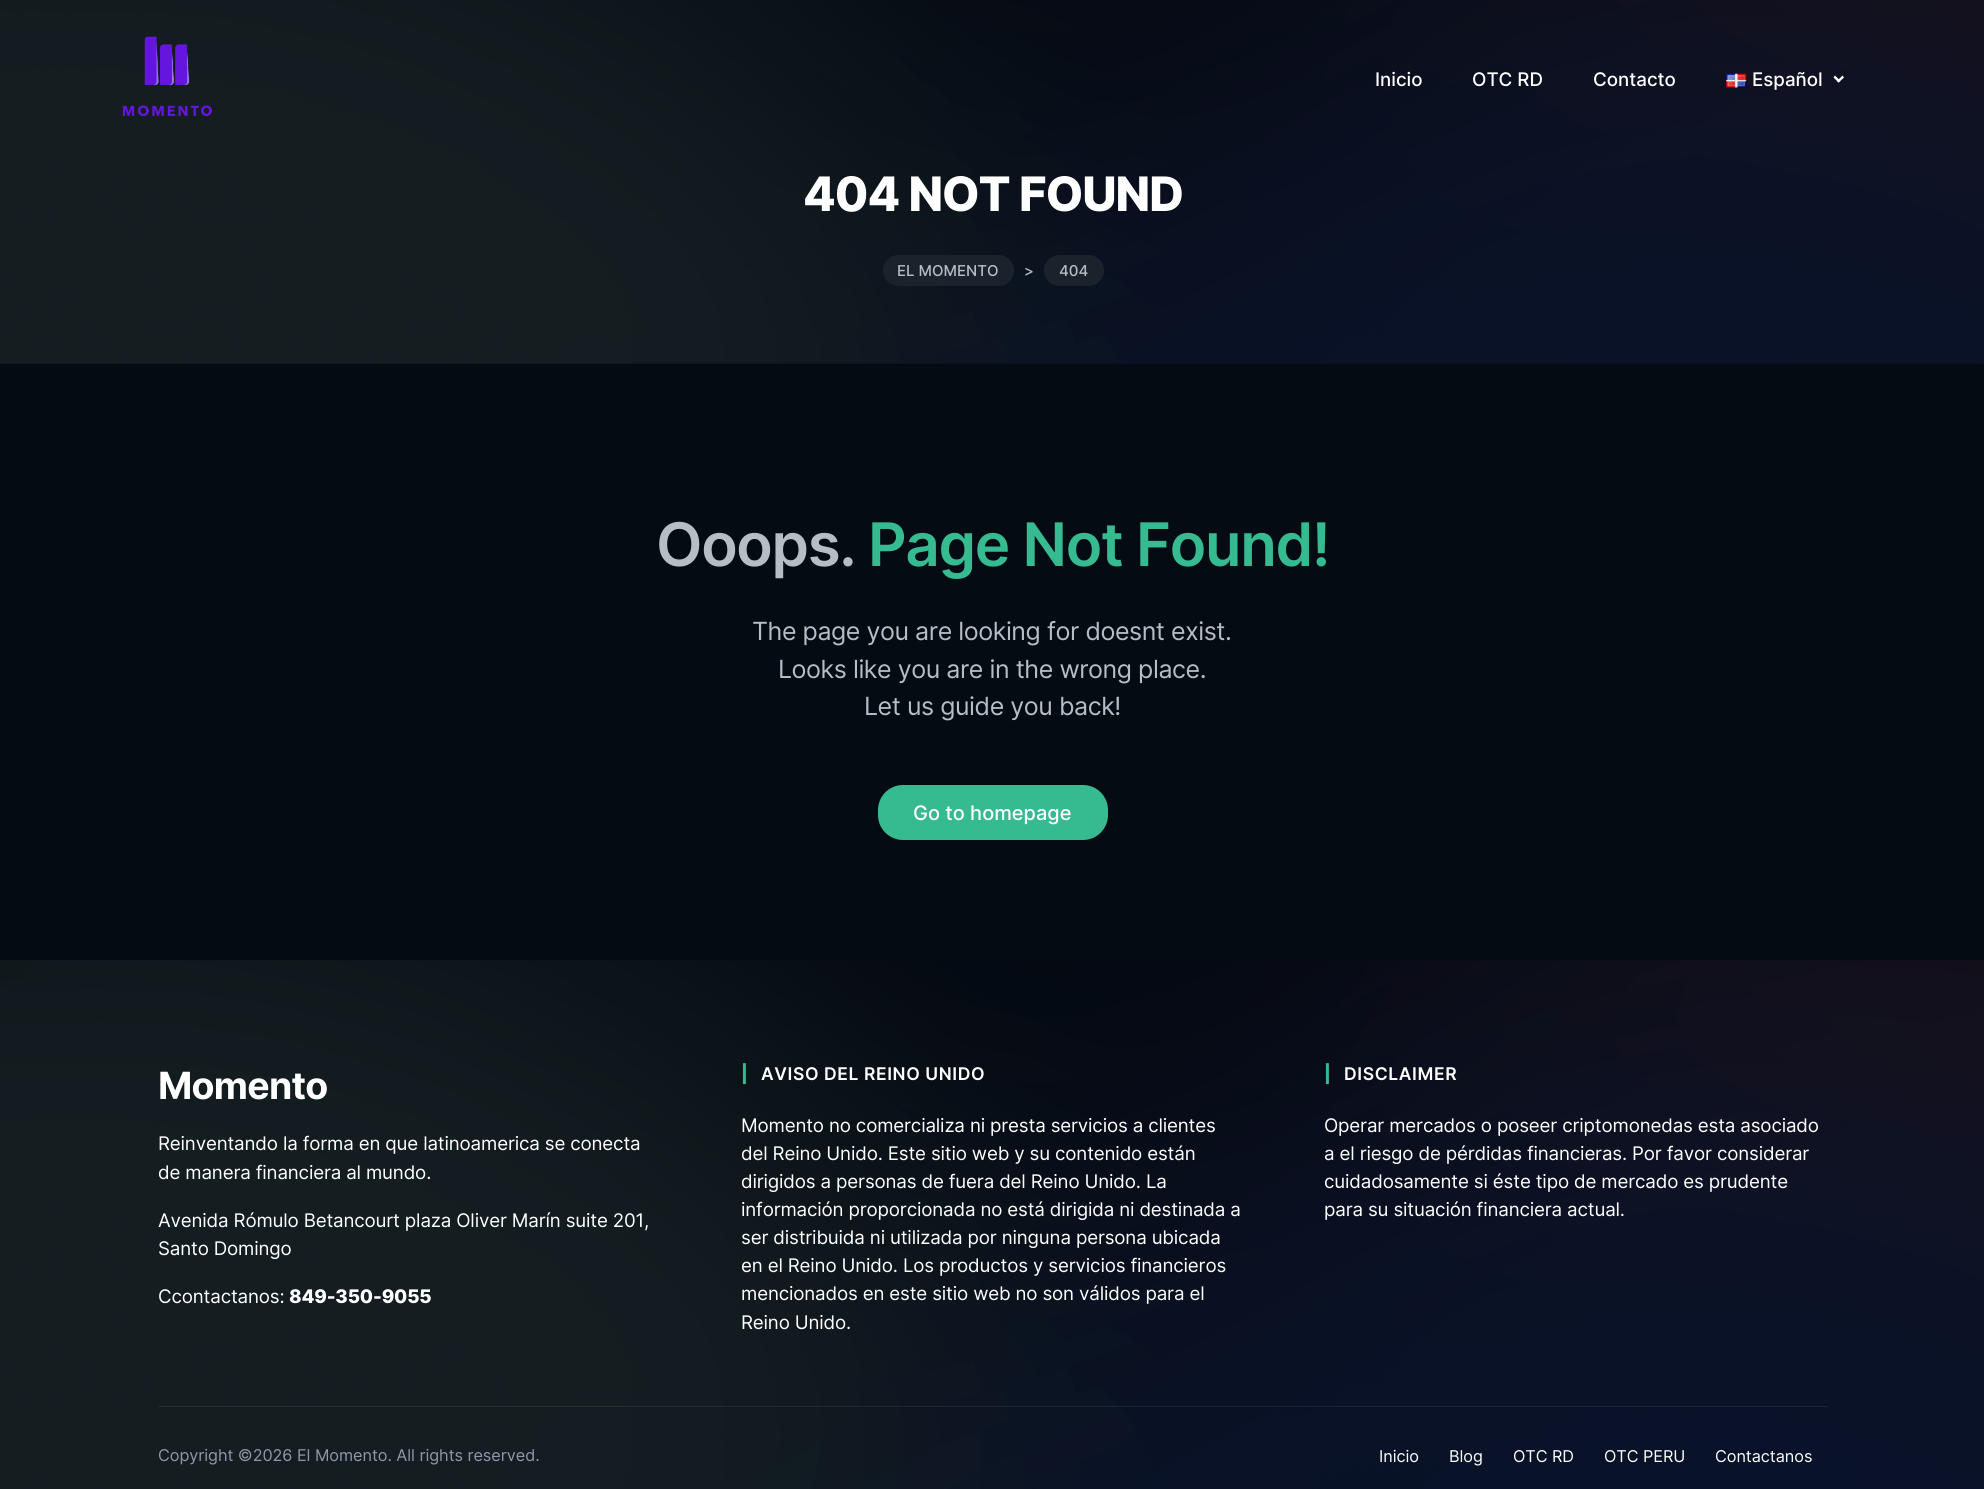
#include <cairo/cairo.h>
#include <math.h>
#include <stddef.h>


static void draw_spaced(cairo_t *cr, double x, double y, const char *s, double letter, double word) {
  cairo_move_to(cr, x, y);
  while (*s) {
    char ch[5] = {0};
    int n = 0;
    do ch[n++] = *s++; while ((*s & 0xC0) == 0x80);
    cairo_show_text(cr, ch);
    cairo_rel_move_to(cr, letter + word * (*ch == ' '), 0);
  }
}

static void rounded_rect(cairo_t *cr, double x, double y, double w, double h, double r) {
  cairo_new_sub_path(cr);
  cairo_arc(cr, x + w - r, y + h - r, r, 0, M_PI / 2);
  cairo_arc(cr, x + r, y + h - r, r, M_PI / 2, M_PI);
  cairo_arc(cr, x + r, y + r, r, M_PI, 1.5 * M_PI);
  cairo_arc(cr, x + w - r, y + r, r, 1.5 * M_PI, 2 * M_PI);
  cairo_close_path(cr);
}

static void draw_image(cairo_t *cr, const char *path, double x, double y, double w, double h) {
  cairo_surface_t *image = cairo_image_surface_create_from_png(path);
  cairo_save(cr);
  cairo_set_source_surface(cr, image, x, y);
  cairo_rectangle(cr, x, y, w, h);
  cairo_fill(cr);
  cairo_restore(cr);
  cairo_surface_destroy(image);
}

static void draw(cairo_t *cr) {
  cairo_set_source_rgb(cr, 5 / 255.0, 11 / 255.0, 19 / 255.0);
  cairo_paint(cr);
  draw_image(cr, "images/3.png", 0, 0, 1984, 364);
  draw_image(cr, "images/1.png", 122, 36, 90, 81);
  draw_image(cr, "images/2.png", 1726, 73, 21, 15);
  cairo_set_source_rgb(cr, 1, 1, 1);
  cairo_new_path(cr);
  cairo_move_to(cr, 1844, 77.5);
  cairo_line_to(cr, 1838.5, 82.5);
  cairo_line_to(cr, 1837, 81);
  cairo_line_to(cr, 1842.5, 75.5);
  cairo_close_path(cr);
  cairo_fill(cr);
  cairo_new_path(cr);
  cairo_move_to(cr, 1840.5, 81);
  cairo_line_to(cr, 1838.5, 82.5);
  cairo_line_to(cr, 1833.5, 77.5);
  cairo_line_to(cr, 1835, 75.5);
  cairo_close_path(cr);
  cairo_fill(cr);
  cairo_set_source_rgb(cr, 28 / 255.0, 34 / 255.0, 43 / 255.0);
  rounded_rect(cr, 883, 255, 131, 31, 15.5);
  cairo_fill(cr);
  rounded_rect(cr, 1044, 255, 60, 31, 15.5);
  cairo_fill(cr);
  cairo_set_source_rgb(cr, 54 / 255.0, 187 / 255.0, 145 / 255.0);
  rounded_rect(cr, 878, 785, 230, 55, 25);
  cairo_fill(cr);
  draw_image(cr, "images/4.png", 0, 960, 1984, 529);
  cairo_set_source_rgba(cr, 1, 1, 1, 0.07);
  cairo_rectangle(cr, 158, 1406, 1670, 1);
  cairo_fill(cr);
  cairo_select_font_face(cr, "Inter Medium", CAIRO_FONT_SLANT_NORMAL, CAIRO_FONT_WEIGHT_NORMAL);
  cairo_set_font_size(cr, 18.75);
  cairo_set_source_rgb(cr, 1, 1, 1);
  cairo_move_to(cr, 1375, 86);
  cairo_show_text(cr, "Inicio");
  cairo_move_to(cr, 1472, 86);
  cairo_show_text(cr, "OTC RD");
  cairo_move_to(cr, 1593, 86);
  cairo_show_text(cr, "Contacto");
  cairo_move_to(cr, 1752, 86);
  cairo_show_text(cr, "Español");
  cairo_select_font_face(cr, "Inter ExtraBold", CAIRO_FONT_SLANT_NORMAL, CAIRO_FONT_WEIGHT_NORMAL);
  cairo_set_font_size(cr, 47.5);
  draw_spaced(cr, 803, 211, "404 NOT FOUND", -1, 0);
  cairo_select_font_face(cr, "Inter Medium", CAIRO_FONT_SLANT_NORMAL, CAIRO_FONT_WEIGHT_NORMAL);
  cairo_set_font_size(cr, 15);
  cairo_set_source_rgb(cr, 182 / 255.0, 189 / 255.0, 197 / 255.0);
  cairo_move_to(cr, 897, 276);
  cairo_show_text(cr, "EL MOMENTO");
  cairo_move_to(cr, 1024, 276);
  cairo_show_text(cr, ">");
  cairo_move_to(cr, 1059, 276);
  cairo_show_text(cr, "404");
  cairo_select_font_face(cr, "Inter SemiBold", CAIRO_FONT_SLANT_NORMAL, CAIRO_FONT_WEIGHT_NORMAL);
  cairo_set_font_size(cr, 60);
  draw_spaced(cr, 656, 566, "Ooops.", -1.3, 0);
  cairo_set_source_rgb(cr, 54 / 255.0, 187 / 255.0, 145 / 255.0);
  draw_spaced(cr, 868, 566, "Page Not Found!", -1.3, 0);
  cairo_select_font_face(cr, "Inter", CAIRO_FONT_SLANT_NORMAL, CAIRO_FONT_WEIGHT_NORMAL);
  cairo_set_font_size(cr, 25);
  cairo_set_source_rgb(cr, 182 / 255.0, 189 / 255.0, 197 / 255.0);
  draw_spaced(cr, 752, 640, "The page you are looking for doesnt exist.", -0.45, 0);
  draw_spaced(cr, 778, 678, "Looks like you are in the wrong place.", -0.45, 0);
  draw_spaced(cr, 864, 715, "Let us guide you back!", -0.45, 0);
  cairo_select_font_face(cr, "Inter Medium", CAIRO_FONT_SLANT_NORMAL, CAIRO_FONT_WEIGHT_NORMAL);
  cairo_set_font_size(cr, 20);
  cairo_set_source_rgb(cr, 1, 1, 1);
  cairo_move_to(cr, 913, 820);
  cairo_show_text(cr, "Go to homepage");
  cairo_select_font_face(cr, "Inter", CAIRO_FONT_SLANT_NORMAL, CAIRO_FONT_WEIGHT_BOLD);
  cairo_set_font_size(cr, 37.5);
  draw_spaced(cr, 158, 1099, "Momento", -0.75, 0);
  cairo_select_font_face(cr, "Inter", CAIRO_FONT_SLANT_NORMAL, CAIRO_FONT_WEIGHT_NORMAL);
  cairo_set_font_size(cr, 18.75);
  draw_spaced(cr, 158, 1150, "Reinventando la forma en que latinoamerica se conecta", -0.17, 0);
  draw_spaced(cr, 158, 1179, "de manera financiera al mundo.", -0.17, 0);
  draw_spaced(cr, 158, 1227, "Avenida Rómulo Betancourt plaza Oliver Marín suite 201,", -0.17, 0);
  draw_spaced(cr, 158, 1255, "Santo Domingo", -0.17, 0);
  draw_spaced(cr, 158, 1303, "Ccontactanos:", -0.17, 0);
  cairo_select_font_face(cr, "Inter ExtraBold", CAIRO_FONT_SLANT_NORMAL, CAIRO_FONT_WEIGHT_NORMAL);
  draw_spaced(cr, 289, 1303, "849-350-9055", -0.17, 0);
  cairo_set_font_size(cr, 17.5);
  cairo_set_source_rgb(cr, 54 / 255.0, 187 / 255.0, 145 / 255.0);
  cairo_move_to(cr, 741, 1080);
  cairo_show_text(cr, "|");
  cairo_select_font_face(cr, "Inter SemiBold", CAIRO_FONT_SLANT_NORMAL, CAIRO_FONT_WEIGHT_NORMAL);
  cairo_set_source_rgb(cr, 1, 1, 1);
  draw_spaced(cr, 761, 1080, "AVISO DEL REINO UNIDO", 0.6, 0);
  cairo_select_font_face(cr, "Inter", CAIRO_FONT_SLANT_NORMAL, CAIRO_FONT_WEIGHT_NORMAL);
  cairo_set_font_size(cr, 18.75);
  draw_spaced(cr, 741, 1132, "Momento no comercializa ni presta servicios a clientes", -0.17, 0);
  draw_spaced(cr, 741, 1160, "del Reino Unido. Este sitio web y su contenido están", -0.17, 0);
  draw_spaced(cr, 741, 1188, "dirigidos a personas de fuera del Reino Unido. La", -0.17, 0);
  draw_spaced(cr, 741, 1216, "información proporcionada no está dirigida ni destinada a", -0.17, 0);
  draw_spaced(cr, 741, 1244, "ser distribuida ni utilizada por ninguna persona ubicada", -0.17, 0);
  draw_spaced(cr, 741, 1272, "en el Reino Unido. Los productos y servicios financieros", -0.17, 0);
  draw_spaced(cr, 741, 1300, "mencionados en este sitio web no son válidos para el", -0.17, 0);
  draw_spaced(cr, 741, 1329, "Reino Unido.", -0.17, 0);
  cairo_select_font_face(cr, "Inter ExtraBold", CAIRO_FONT_SLANT_NORMAL, CAIRO_FONT_WEIGHT_NORMAL);
  cairo_set_font_size(cr, 17.5);
  cairo_set_source_rgb(cr, 54 / 255.0, 187 / 255.0, 145 / 255.0);
  cairo_move_to(cr, 1324, 1080);
  cairo_show_text(cr, "|");
  cairo_select_font_face(cr, "Inter SemiBold", CAIRO_FONT_SLANT_NORMAL, CAIRO_FONT_WEIGHT_NORMAL);
  cairo_set_source_rgb(cr, 1, 1, 1);
  draw_spaced(cr, 1344, 1080, "DISCLAIMER", 0.6, 0);
  cairo_select_font_face(cr, "Inter", CAIRO_FONT_SLANT_NORMAL, CAIRO_FONT_WEIGHT_NORMAL);
  cairo_set_font_size(cr, 18.75);
  draw_spaced(cr, 1324, 1132, "Operar mercados o poseer criptomonedas esta asociado", -0.17, 0);
  draw_spaced(cr, 1324, 1160, "a el riesgo de pérdidas financieras. Por favor considerar", -0.17, 0);
  draw_spaced(cr, 1324, 1188, "cuidadosamente si éste tipo de mercado es prudente", -0.17, 0);
  draw_spaced(cr, 1324, 1216, "para su situación financiera actual.", -0.17, 0);
  cairo_set_font_size(cr, 16.25);
  cairo_set_source_rgb(cr, 144 / 255.0, 151 / 255.0, 170 / 255.0);
  draw_spaced(cr, 158, 1461, "Copyright ©2026 El Momento. All rights reserved.", -0.05, 0);
  cairo_set_source_rgb(cr, 1, 1, 1);
  draw_spaced(cr, 1379, 1462, "Inicio", -0.05, 0);
  draw_spaced(cr, 1449, 1462, "Blog", -0.05, 0);
  draw_spaced(cr, 1513, 1462, "OTC RD", -0.05, 0);
  draw_spaced(cr, 1604, 1462, "OTC PERU", -0.05, 0);
  draw_spaced(cr, 1715, 1462, "Contactanos", -0.05, 0);
}

int main(void) {
  cairo_surface_t *surface = cairo_image_surface_create(CAIRO_FORMAT_RGB24, 1984, 1489);
  cairo_t *cr = cairo_create(surface);
  cairo_font_options_t *options = cairo_font_options_create();
  cairo_font_options_set_hint_metrics(options, CAIRO_HINT_METRICS_OFF);
  cairo_font_options_set_hint_style(options, CAIRO_HINT_STYLE_NONE);
  cairo_set_font_options(cr, options);
  cairo_set_miter_limit(cr, 4);
  draw(cr);
  cairo_surface_write_to_png(surface, "out.png");
  cairo_font_options_destroy(options);
  cairo_destroy(cr);
  cairo_surface_destroy(surface);
  return 0;
}
